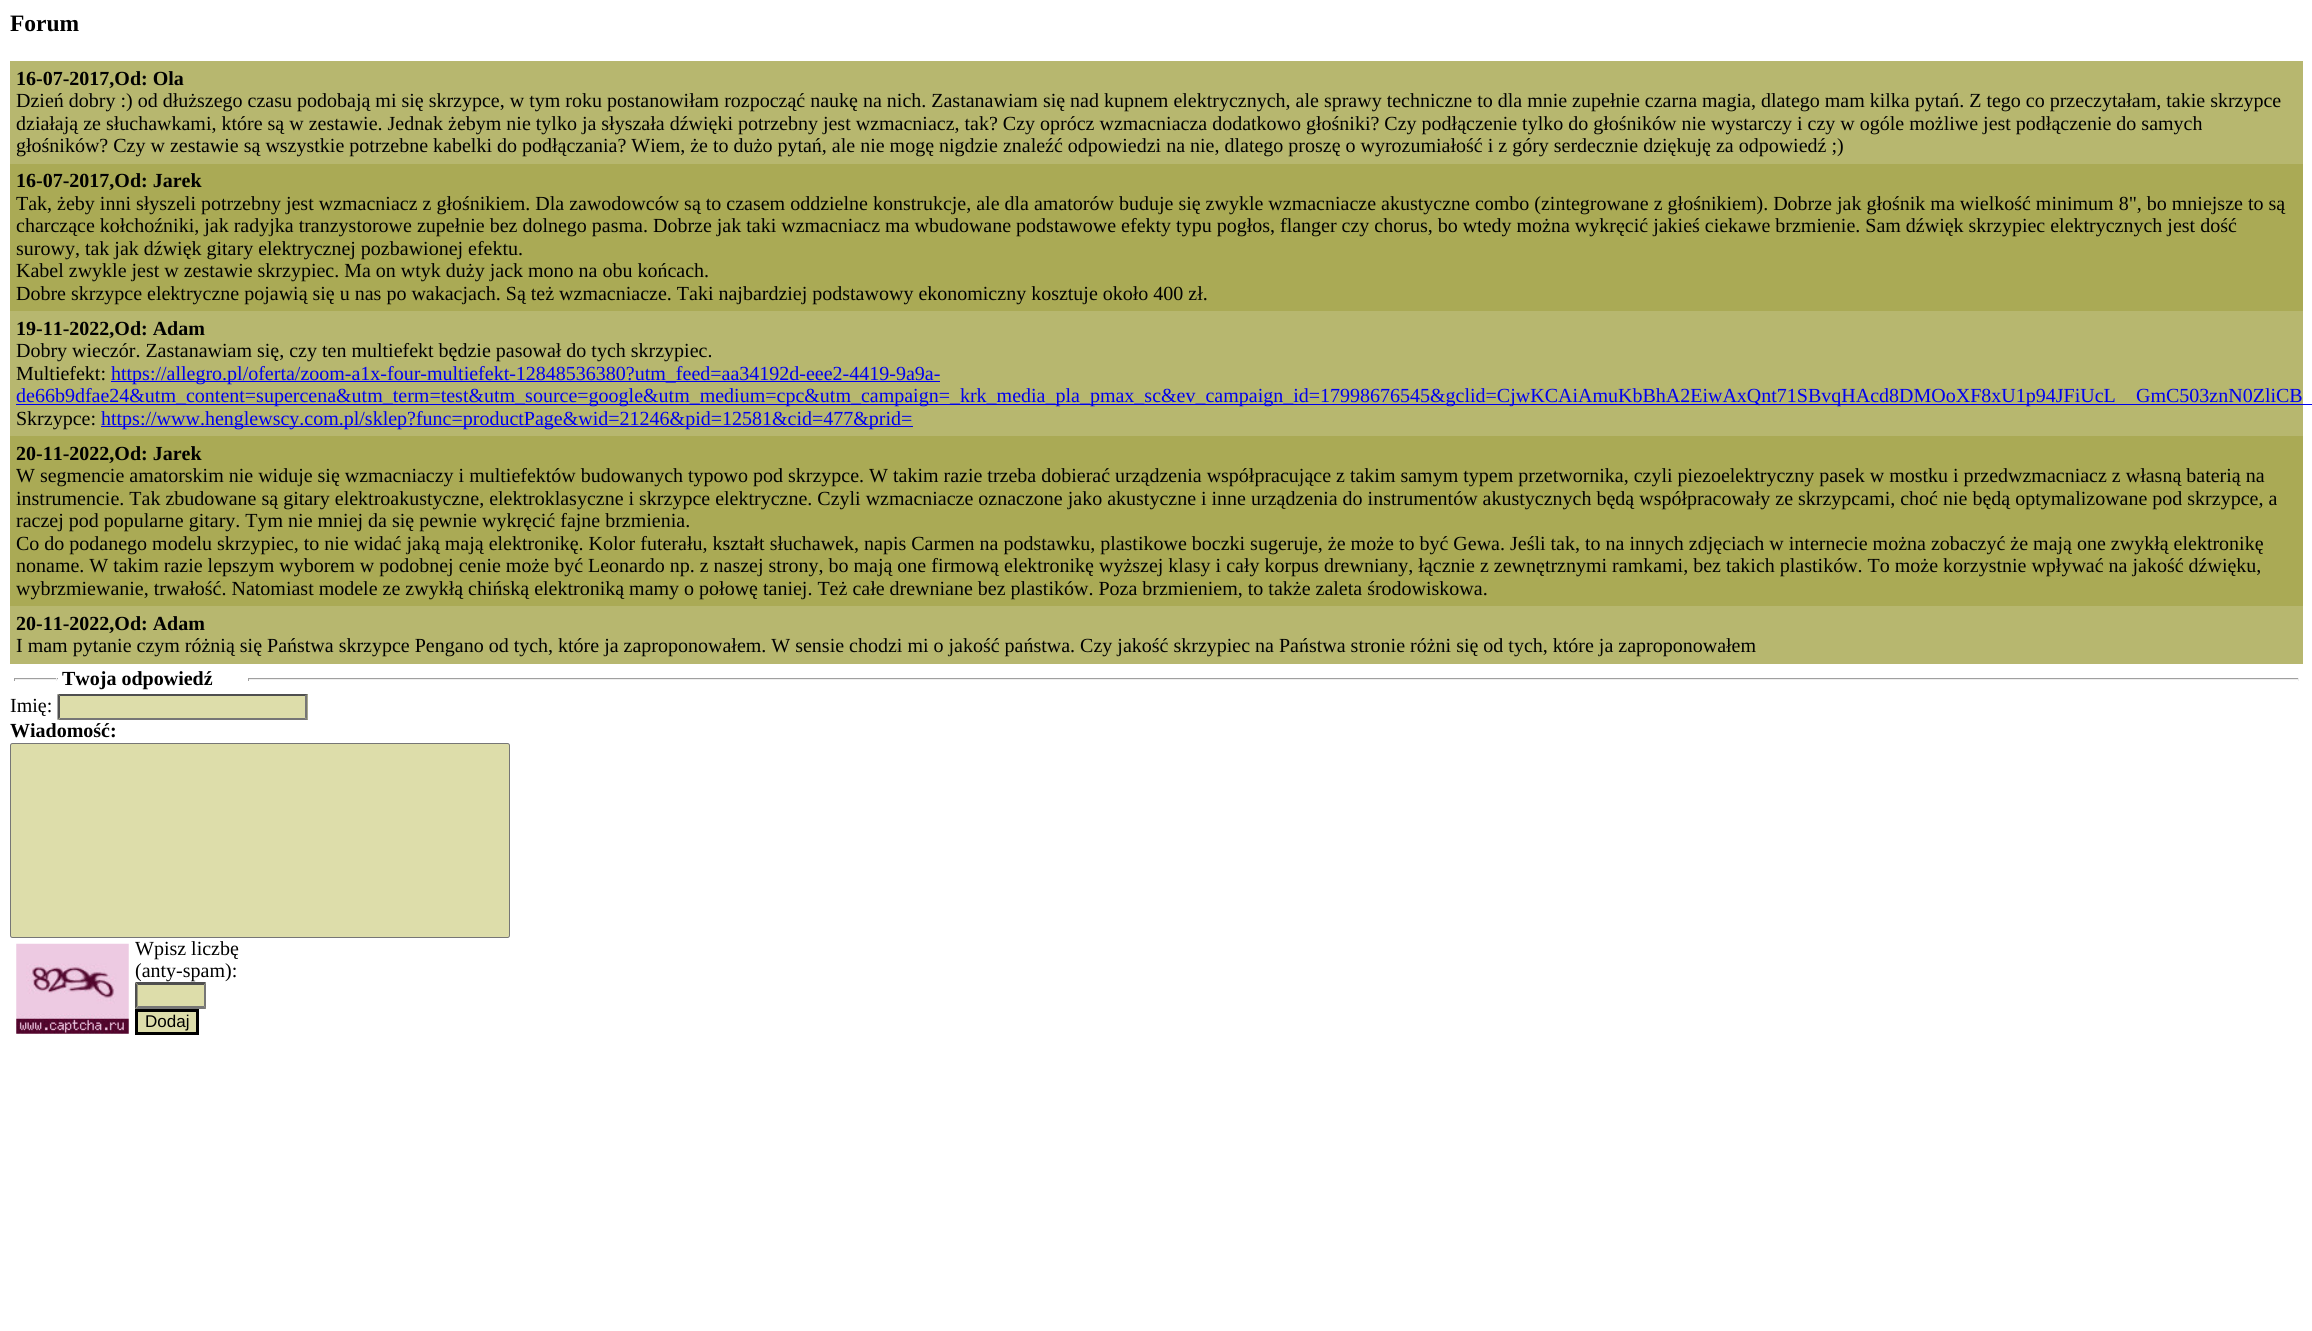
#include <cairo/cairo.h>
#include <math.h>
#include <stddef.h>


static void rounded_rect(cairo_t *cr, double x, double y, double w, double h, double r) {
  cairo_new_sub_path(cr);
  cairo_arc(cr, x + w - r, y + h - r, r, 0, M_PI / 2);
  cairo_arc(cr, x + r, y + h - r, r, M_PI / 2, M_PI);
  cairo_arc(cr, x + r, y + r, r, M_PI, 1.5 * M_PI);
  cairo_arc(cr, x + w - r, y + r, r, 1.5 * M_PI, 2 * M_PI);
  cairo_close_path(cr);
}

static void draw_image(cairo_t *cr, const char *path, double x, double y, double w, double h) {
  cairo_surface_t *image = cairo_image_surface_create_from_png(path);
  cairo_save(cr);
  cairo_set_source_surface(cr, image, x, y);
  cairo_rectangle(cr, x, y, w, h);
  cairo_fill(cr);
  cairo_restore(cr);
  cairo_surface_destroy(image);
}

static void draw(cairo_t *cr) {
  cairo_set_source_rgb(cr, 1, 1, 1);
  cairo_paint(cr);
  cairo_set_source_rgb(cr, 183 / 255.0, 183 / 255.0, 111 / 255.0);
  cairo_rectangle(cr, 10, 61, 2293, 103);
  cairo_fill(cr);
  cairo_set_source_rgb(cr, 170 / 255.0, 170 / 255.0, 85 / 255.0);
  cairo_rectangle(cr, 10, 164, 2293, 147);
  cairo_fill(cr);
  cairo_set_source_rgb(cr, 183 / 255.0, 183 / 255.0, 111 / 255.0);
  cairo_rectangle(cr, 10, 311, 2293, 125);
  cairo_fill(cr);
  cairo_set_source_rgb(cr, 0, 0, 238 / 255.0);
  cairo_rectangle(cr, 111, 381, 829, 1);
  cairo_fill(cr);
  cairo_rectangle(cr, 16, 404, 2296, 1);
  cairo_fill(cr);
  cairo_rectangle(cr, 101, 426, 812, 1);
  cairo_fill(cr);
  cairo_set_source_rgb(cr, 170 / 255.0, 170 / 255.0, 85 / 255.0);
  cairo_rectangle(cr, 10, 436, 2293, 170);
  cairo_fill(cr);
  cairo_set_source_rgb(cr, 183 / 255.0, 183 / 255.0, 111 / 255.0);
  cairo_rectangle(cr, 10, 606, 2293, 58);
  cairo_fill(cr);
  cairo_set_source_rgb(cr, 159 / 255.0, 159 / 255.0, 159 / 255.0);
  cairo_rectangle(cr, 14, 678, 44, 1);
  cairo_fill(cr);
  cairo_set_source_rgb(cr, 238 / 255.0, 238 / 255.0, 238 / 255.0);
  cairo_rectangle(cr, 56, 678, 1, 3);
  cairo_fill(cr);
  cairo_rectangle(cr, 14, 679, 44, 1);
  cairo_fill(cr);
  cairo_set_source_rgb(cr, 159 / 255.0, 159 / 255.0, 159 / 255.0);
  cairo_rectangle(cr, 14, 678, 1, 3);
  cairo_fill(cr);
  cairo_rectangle(cr, 248, 678, 2051, 1);
  cairo_fill(cr);
  cairo_set_source_rgb(cr, 238 / 255.0, 238 / 255.0, 238 / 255.0);
  cairo_rectangle(cr, 2298, 678, 1, 3);
  cairo_fill(cr);
  cairo_rectangle(cr, 248, 679, 2051, 1);
  cairo_fill(cr);
  cairo_set_source_rgb(cr, 159 / 255.0, 159 / 255.0, 159 / 255.0);
  cairo_rectangle(cr, 248, 678, 1, 3);
  cairo_fill(cr);
  cairo_set_source_rgb(cr, 221 / 255.0, 221 / 255.0, 170 / 255.0);
  cairo_rectangle(cr, 58, 694, 250, 26);
  cairo_fill(cr);
  cairo_set_source_rgb(cr, 79 / 255.0, 79 / 255.0, 79 / 255.0);
  cairo_new_path(cr);
  cairo_move_to(cr, 58, 694);
  cairo_line_to(cr, 308, 694);
  cairo_line_to(cr, 305, 696);
  cairo_line_to(cr, 60, 696);
  cairo_close_path(cr);
  cairo_fill(cr);
  cairo_set_source_rgb(cr, 118 / 255.0, 118 / 255.0, 118 / 255.0);
  cairo_new_path(cr);
  cairo_move_to(cr, 307.5, 694);
  cairo_line_to(cr, 307.5, 720);
  cairo_line_to(cr, 305, 717.5);
  cairo_line_to(cr, 305, 696);
  cairo_close_path(cr);
  cairo_fill(cr);
  cairo_new_path(cr);
  cairo_move_to(cr, 308, 720);
  cairo_line_to(cr, 58, 720);
  cairo_line_to(cr, 60, 718);
  cairo_line_to(cr, 305, 718);
  cairo_close_path(cr);
  cairo_fill(cr);
  cairo_set_source_rgb(cr, 79 / 255.0, 79 / 255.0, 79 / 255.0);
  cairo_new_path(cr);
  cairo_move_to(cr, 57.5, 720);
  cairo_line_to(cr, 57.5, 694);
  cairo_line_to(cr, 60, 696);
  cairo_line_to(cr, 60, 717.5);
  cairo_close_path(cr);
  cairo_fill(cr);
  cairo_set_source_rgb(cr, 221 / 255.0, 221 / 255.0, 170 / 255.0);
  rounded_rect(cr, 10.5, 743.5, 499, 194, 2);
  cairo_fill_preserve(cr);
  cairo_set_source_rgb(cr, 118 / 255.0, 118 / 255.0, 118 / 255.0);
  cairo_set_line_width(cr, 1);
  cairo_stroke(cr);
  draw_image(cr, "images/1.png", 16, 943, 113, 91);
  cairo_set_source_rgb(cr, 221 / 255.0, 221 / 255.0, 170 / 255.0);
  cairo_rectangle(cr, 135, 983, 71, 26);
  cairo_fill(cr);
  cairo_set_source_rgb(cr, 79 / 255.0, 79 / 255.0, 79 / 255.0);
  cairo_new_path(cr);
  cairo_move_to(cr, 135, 982);
  cairo_line_to(cr, 206, 982);
  cairo_line_to(cr, 204, 985);
  cairo_line_to(cr, 138, 985);
  cairo_close_path(cr);
  cairo_fill(cr);
  cairo_set_source_rgb(cr, 118 / 255.0, 118 / 255.0, 118 / 255.0);
  cairo_new_path(cr);
  cairo_move_to(cr, 206, 982.5);
  cairo_line_to(cr, 206, 1009);
  cairo_line_to(cr, 204, 1006);
  cairo_line_to(cr, 204, 985);
  cairo_close_path(cr);
  cairo_fill(cr);
  cairo_new_path(cr);
  cairo_move_to(cr, 206, 1009);
  cairo_line_to(cr, 135, 1009);
  cairo_line_to(cr, 138, 1006);
  cairo_line_to(cr, 204, 1006);
  cairo_close_path(cr);
  cairo_fill(cr);
  cairo_set_source_rgb(cr, 79 / 255.0, 79 / 255.0, 79 / 255.0);
  cairo_new_path(cr);
  cairo_move_to(cr, 135, 1009);
  cairo_line_to(cr, 135, 982.5);
  cairo_line_to(cr, 137.5, 985);
  cairo_line_to(cr, 137.5, 1006);
  cairo_close_path(cr);
  cairo_fill(cr);
  cairo_set_source_rgb(cr, 221 / 255.0, 221 / 255.0, 170 / 255.0);
  cairo_rectangle(cr, 136.5, 1010.5, 61, 23);
  cairo_fill_preserve(cr);
  cairo_set_source_rgb(cr, 0, 0, 0);
  cairo_set_line_width(cr, 3);
  cairo_stroke(cr);
  cairo_select_font_face(cr, "Liberation Serif", CAIRO_FONT_SLANT_NORMAL, CAIRO_FONT_WEIGHT_BOLD);
  cairo_set_font_size(cr, 23.5);
  cairo_move_to(cr, 10, 31);
  cairo_show_text(cr, "Forum");
  cairo_set_font_size(cr, 20);
  cairo_move_to(cr, 16, 85);
  cairo_show_text(cr, "16-07-2017,Od: Ola");
  cairo_select_font_face(cr, "Liberation Serif", CAIRO_FONT_SLANT_NORMAL, CAIRO_FONT_WEIGHT_NORMAL);
  cairo_move_to(cr, 16, 107);
  cairo_show_text(cr, "Dzień dobry :) od dłuższego czasu podobają mi się skrzypce, w tym roku postanowiłam rozpocząć naukę na nich. Zastanawiam się nad kupnem elektrycznych, ale sprawy techniczne to dla mnie zupełnie czarna magia, dlatego mam kilka pytań. Z tego co przeczytałam, takie skrzypce");
  cairo_move_to(cr, 16, 130);
  cairo_show_text(cr, "działają ze słuchawkami, które są w zestawie. Jednak żebym nie tylko ja słyszała dźwięki potrzebny jest wzmacniacz, tak? Czy oprócz wzmacniacza dodatkowo głośniki? Czy podłączenie tylko do głośników nie wystarczy i czy w ogóle możliwe jest podłączenie do samych");
  cairo_move_to(cr, 16, 152);
  cairo_show_text(cr, "głośników? Czy w zestawie są wszystkie potrzebne kabelki do podłączania? Wiem, że to dużo pytań, ale nie mogę nigdzie znaleźć odpowiedzi na nie, dlatego proszę o wyrozumiałość i z góry serdecznie dziękuję za odpowiedź ;)");
  cairo_select_font_face(cr, "Liberation Serif", CAIRO_FONT_SLANT_NORMAL, CAIRO_FONT_WEIGHT_BOLD);
  cairo_move_to(cr, 16, 187);
  cairo_show_text(cr, "16-07-2017,Od: Jarek");
  cairo_select_font_face(cr, "Liberation Serif", CAIRO_FONT_SLANT_NORMAL, CAIRO_FONT_WEIGHT_NORMAL);
  cairo_move_to(cr, 16, 210);
  cairo_show_text(cr, "Tak, żeby inni słyszeli potrzebny jest wzmacniacz z głośnikiem. Dla zawodowców są to czasem oddzielne konstrukcje, ale dla amatorów buduje się zwykle wzmacniacze akustyczne combo (zintegrowane z głośnikiem). Dobrze jak głośnik ma wielkość minimum 8\", bo mniejsze to są");
  cairo_move_to(cr, 16, 232);
  cairo_show_text(cr, "charczące kołchoźniki, jak radyjka tranzystorowe zupełnie bez dolnego pasma. Dobrze jak taki wzmacniacz ma wbudowane podstawowe efekty typu pogłos, flanger czy chorus, bo wtedy można wykręcić jakieś ciekawe brzmienie. Sam dźwięk skrzypiec elektrycznych jest dość");
  cairo_move_to(cr, 16, 255);
  cairo_show_text(cr, "surowy, tak jak dźwięk gitary elektrycznej pozbawionej efektu.");
  cairo_move_to(cr, 16, 277);
  cairo_show_text(cr, "Kabel zwykle jest w zestawie skrzypiec. Ma on wtyk duży jack mono na obu końcach.");
  cairo_move_to(cr, 16, 300);
  cairo_show_text(cr, "Dobre skrzypce elektryczne pojawią się u nas po wakacjach. Są też wzmacniacze. Taki najbardziej podstawowy ekonomiczny kosztuje około 400 zł.");
  cairo_select_font_face(cr, "Liberation Serif", CAIRO_FONT_SLANT_NORMAL, CAIRO_FONT_WEIGHT_BOLD);
  cairo_move_to(cr, 16, 335);
  cairo_show_text(cr, "19-11-2022,Od: Adam");
  cairo_select_font_face(cr, "Liberation Serif", CAIRO_FONT_SLANT_NORMAL, CAIRO_FONT_WEIGHT_NORMAL);
  cairo_move_to(cr, 16, 357);
  cairo_show_text(cr, "Dobry wieczór. Zastanawiam się, czy ten multiefekt będzie pasował do tych skrzypiec.");
  cairo_move_to(cr, 16, 380);
  cairo_show_text(cr, "Multiefekt:");
  cairo_set_source_rgb(cr, 0, 0, 238 / 255.0);
  cairo_move_to(cr, 111, 380);
  cairo_show_text(cr, "https://allegro.pl/oferta/zoom-a1x-four-multiefekt-12848536380?utm_feed=aa34192d-eee2-4419-9a9a-");
  cairo_move_to(cr, 16, 402);
  cairo_show_text(cr, "de66b9dfae24&utm_content=supercena&utm_term=test&utm_source=google&utm_medium=cpc&utm_campaign=_krk_media_pla_pmax_sc&ev_campaign_id=17998676545&gclid=CjwKCAiAmuKbBhA2EiwAxQnt71SBvqHAcd8DMOoXF8xU1p94JFiUcL");
  cairo_move_to(cr, 2136, 402);
  cairo_show_text(cr, "GmC503znN0ZliCB");
  cairo_set_source_rgb(cr, 0, 0, 0);
  cairo_move_to(cr, 16, 425);
  cairo_show_text(cr, "Skrzypce:");
  cairo_set_source_rgb(cr, 0, 0, 238 / 255.0);
  cairo_move_to(cr, 101, 425);
  cairo_show_text(cr, "https://www.henglewscy.com.pl/sklep?func=productPage&wid=21246&pid=12581&cid=477&prid=");
  cairo_select_font_face(cr, "Liberation Serif", CAIRO_FONT_SLANT_NORMAL, CAIRO_FONT_WEIGHT_BOLD);
  cairo_set_source_rgb(cr, 0, 0, 0);
  cairo_move_to(cr, 16, 460);
  cairo_show_text(cr, "20-11-2022,Od: Jarek");
  cairo_select_font_face(cr, "Liberation Serif", CAIRO_FONT_SLANT_NORMAL, CAIRO_FONT_WEIGHT_NORMAL);
  cairo_move_to(cr, 16, 482);
  cairo_show_text(cr, "W segmencie amatorskim nie widuje się wzmacniaczy i multiefektów budowanych typowo pod skrzypce. W takim razie trzeba dobierać urządzenia współpracujące z takim samym typem przetwornika, czyli piezoelektryczny pasek w mostku i przedwzmacniacz z własną baterią na");
  cairo_move_to(cr, 16, 505);
  cairo_show_text(cr, "instrumencie. Tak zbudowane są gitary elektroakustyczne, elektroklasyczne i skrzypce elektryczne. Czyli wzmacniacze oznaczone jako akustyczne i inne urządzenia do instrumentów akustycznych będą współpracowały ze skrzypcami, choć nie będą optymalizowane pod skrzypce, a");
  cairo_move_to(cr, 16, 527);
  cairo_show_text(cr, "raczej pod popularne gitary. Tym nie mniej da się pewnie wykręcić fajne brzmienia.");
  cairo_move_to(cr, 16, 550);
  cairo_show_text(cr, "Co do podanego modelu skrzypiec, to nie widać jaką mają elektronikę. Kolor futerału, kształt słuchawek, napis Carmen na podstawku, plastikowe boczki sugeruje, że może to być Gewa. Jeśli tak, to na innych zdjęciach w internecie można zobaczyć że mają one zwykłą elektronikę");
  cairo_move_to(cr, 16, 572);
  cairo_show_text(cr, "noname. W takim razie lepszym wyborem w podobnej cenie może być Leonardo np. z naszej strony, bo mają one firmową elektronikę wyższej klasy i cały korpus drewniany, łącznie z zewnętrznymi ramkami, bez takich plastików. To może korzystnie wpływać na jakość dźwięku,");
  cairo_move_to(cr, 16, 595);
  cairo_show_text(cr, "wybrzmiewanie, trwałość. Natomiast modele ze zwykłą chińską elektroniką mamy o połowę taniej. Też całe drewniane bez plastików. Poza brzmieniem, to także zaleta środowiskowa.");
  cairo_select_font_face(cr, "Liberation Serif", CAIRO_FONT_SLANT_NORMAL, CAIRO_FONT_WEIGHT_BOLD);
  cairo_move_to(cr, 16, 630);
  cairo_show_text(cr, "20-11-2022,Od: Adam");
  cairo_select_font_face(cr, "Liberation Serif", CAIRO_FONT_SLANT_NORMAL, CAIRO_FONT_WEIGHT_NORMAL);
  cairo_move_to(cr, 16, 652);
  cairo_show_text(cr, "I mam pytanie czym różnią się Państwa skrzypce Pengano od tych, które ja zaproponowałem. W sensie chodzi mi o jakość państwa. Czy jakość skrzypiec na Państwa stronie różni się od tych, które ja zaproponowałem");
  cairo_select_font_face(cr, "Liberation Serif", CAIRO_FONT_SLANT_NORMAL, CAIRO_FONT_WEIGHT_BOLD);
  cairo_move_to(cr, 62, 685);
  cairo_show_text(cr, "Twoja odpowiedź");
  cairo_select_font_face(cr, "Liberation Serif", CAIRO_FONT_SLANT_NORMAL, CAIRO_FONT_WEIGHT_NORMAL);
  cairo_move_to(cr, 10, 712);
  cairo_show_text(cr, "Imię:");
  cairo_select_font_face(cr, "Liberation Serif", CAIRO_FONT_SLANT_NORMAL, CAIRO_FONT_WEIGHT_BOLD);
  cairo_move_to(cr, 10, 737);
  cairo_show_text(cr, "Wiadomość:");
  cairo_select_font_face(cr, "Liberation Serif", CAIRO_FONT_SLANT_NORMAL, CAIRO_FONT_WEIGHT_NORMAL);
  cairo_move_to(cr, 135, 955);
  cairo_show_text(cr, "Wpisz liczbę");
  cairo_move_to(cr, 135, 977);
  cairo_show_text(cr, "(anty-spam):");
  cairo_select_font_face(cr, "Liberation Sans", CAIRO_FONT_SLANT_NORMAL, CAIRO_FONT_WEIGHT_NORMAL);
  cairo_set_font_size(cr, 17);
  cairo_move_to(cr, 145, 1027);
  cairo_show_text(cr, "Dodaj");
}

int main(void) {
  cairo_surface_t *surface = cairo_image_surface_create(CAIRO_FORMAT_RGB24, 2312, 1331);
  cairo_t *cr = cairo_create(surface);
  cairo_font_options_t *options = cairo_font_options_create();
  cairo_font_options_set_hint_metrics(options, CAIRO_HINT_METRICS_OFF);
  cairo_font_options_set_hint_style(options, CAIRO_HINT_STYLE_NONE);
  cairo_set_font_options(cr, options);
  cairo_set_miter_limit(cr, 4);
  draw(cr);
  cairo_surface_write_to_png(surface, "out.png");
  cairo_font_options_destroy(options);
  cairo_destroy(cr);
  cairo_surface_destroy(surface);
  return 0;
}
